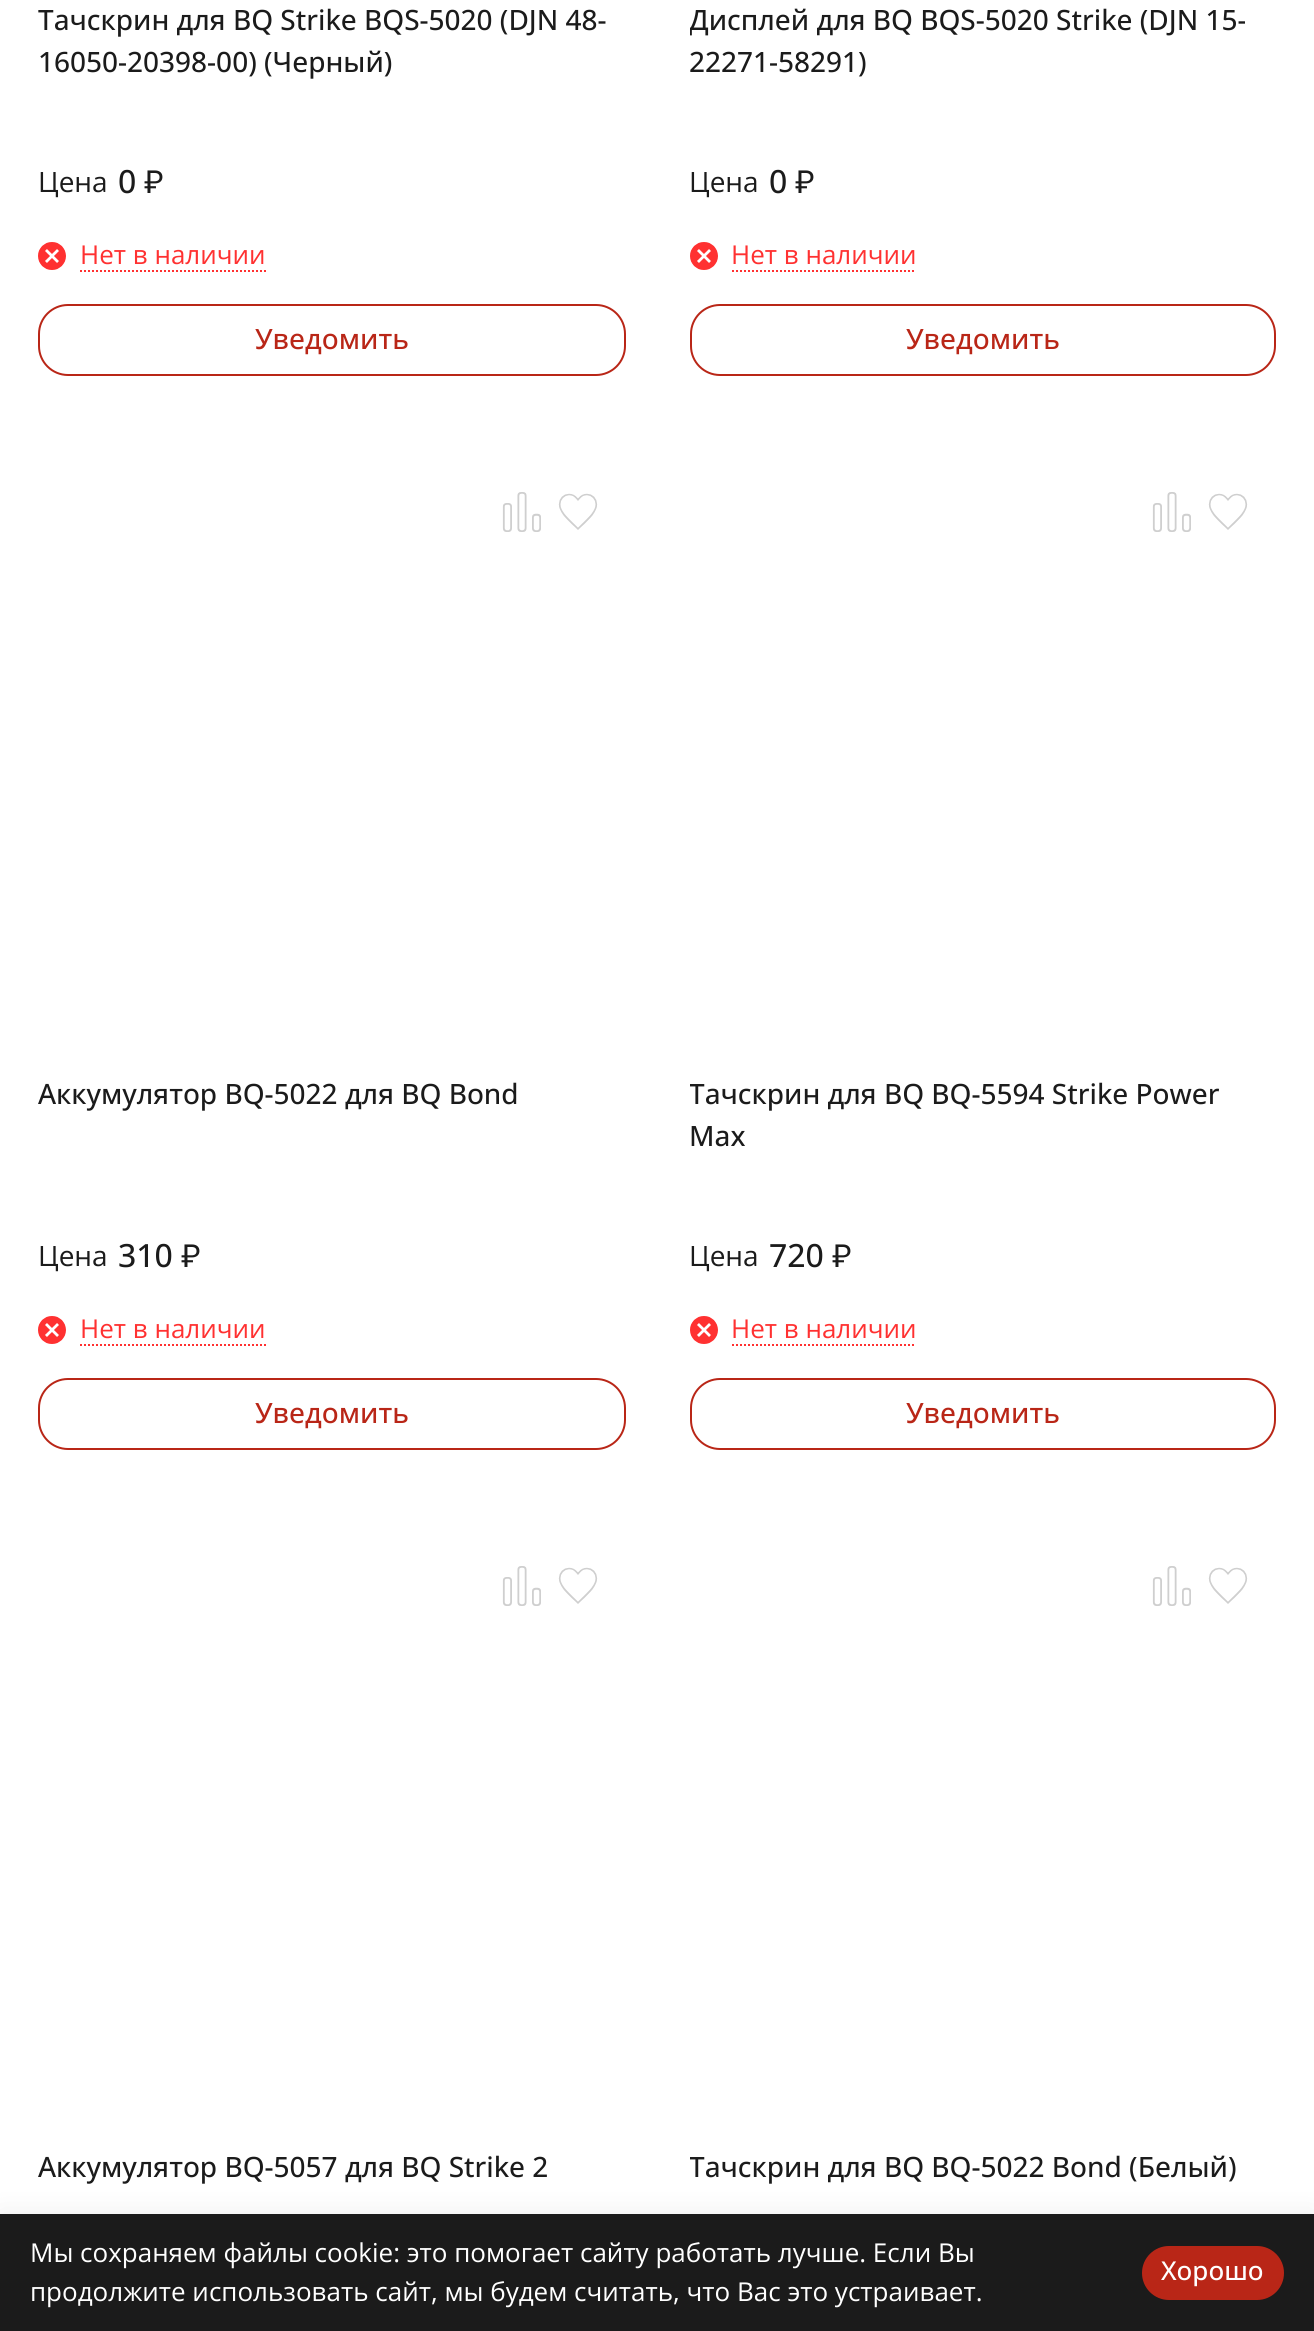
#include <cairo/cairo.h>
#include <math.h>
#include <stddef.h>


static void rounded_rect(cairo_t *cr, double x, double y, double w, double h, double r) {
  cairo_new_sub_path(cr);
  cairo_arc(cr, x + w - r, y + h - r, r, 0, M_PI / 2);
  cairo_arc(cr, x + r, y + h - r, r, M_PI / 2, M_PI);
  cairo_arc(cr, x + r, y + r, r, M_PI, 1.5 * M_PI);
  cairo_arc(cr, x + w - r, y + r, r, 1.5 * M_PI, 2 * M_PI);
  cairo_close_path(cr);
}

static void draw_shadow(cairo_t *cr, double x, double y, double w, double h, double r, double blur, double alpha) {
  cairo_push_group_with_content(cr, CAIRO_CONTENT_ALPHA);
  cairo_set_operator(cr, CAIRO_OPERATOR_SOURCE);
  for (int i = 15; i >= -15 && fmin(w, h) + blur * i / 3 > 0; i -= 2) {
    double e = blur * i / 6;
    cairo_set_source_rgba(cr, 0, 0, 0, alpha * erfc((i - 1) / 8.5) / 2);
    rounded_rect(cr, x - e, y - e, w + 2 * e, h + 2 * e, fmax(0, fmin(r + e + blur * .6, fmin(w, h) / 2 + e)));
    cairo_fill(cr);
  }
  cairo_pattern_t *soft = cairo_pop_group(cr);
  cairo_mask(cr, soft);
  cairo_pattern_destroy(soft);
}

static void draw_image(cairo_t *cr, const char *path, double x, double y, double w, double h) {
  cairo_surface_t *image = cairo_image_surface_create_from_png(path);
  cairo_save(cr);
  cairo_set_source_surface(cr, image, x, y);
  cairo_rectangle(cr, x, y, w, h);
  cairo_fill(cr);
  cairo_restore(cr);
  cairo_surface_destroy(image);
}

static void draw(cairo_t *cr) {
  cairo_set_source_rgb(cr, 1, 1, 1);
  cairo_paint(cr);
  draw_image(cr, "images/1.png", 38, 242, 28, 28);
  cairo_new_path(cr);
  cairo_move_to(cr, 80, 271);
  cairo_line_to(cr, 266, 271);
  cairo_set_source_rgb(cr, 1, 49 / 255.0, 49 / 255.0);
  cairo_set_dash(cr, (double[]){2, 2}, 2, 0);
  cairo_stroke(cr);
  rounded_rect(cr, 39, 305, 586, 70, 29);
  cairo_set_source_rgb(cr, 185 / 255.0, 38 / 255.0, 23 / 255.0);
  cairo_set_dash(cr, NULL, 0, 0);
  cairo_stroke(cr);
  draw_image(cr, "images/1.png", 690, 242, 28, 28);
  cairo_new_path(cr);
  cairo_move_to(cr, 732, 271);
  cairo_line_to(cr, 916, 271);
  cairo_set_source_rgb(cr, 1, 49 / 255.0, 49 / 255.0);
  cairo_set_dash(cr, (double[]){2, 2}, 2, 0);
  cairo_stroke(cr);
  rounded_rect(cr, 691, 305, 584, 70, 29);
  cairo_set_source_rgb(cr, 185 / 255.0, 38 / 255.0, 23 / 255.0);
  cairo_set_dash(cr, NULL, 0, 0);
  cairo_stroke(cr);
  draw_image(cr, "images/2.png", 502, 492, 39, 40);
  draw_image(cr, "images/3.png", 558, 493, 40, 37);
  draw_image(cr, "images/1.png", 38, 1316, 28, 28);
  cairo_new_path(cr);
  cairo_move_to(cr, 80, 1345);
  cairo_line_to(cr, 266, 1345);
  cairo_set_source_rgb(cr, 1, 49 / 255.0, 49 / 255.0);
  cairo_set_dash(cr, (double[]){2, 2}, 2, 0);
  cairo_stroke(cr);
  rounded_rect(cr, 39, 1379, 586, 70, 29);
  cairo_set_source_rgb(cr, 185 / 255.0, 38 / 255.0, 23 / 255.0);
  cairo_set_dash(cr, NULL, 0, 0);
  cairo_stroke(cr);
  draw_image(cr, "images/4.png", 1152, 492, 39, 40);
  draw_image(cr, "images/3.png", 1208, 493, 40, 37);
  draw_image(cr, "images/1.png", 690, 1316, 28, 28);
  cairo_new_path(cr);
  cairo_move_to(cr, 732, 1345);
  cairo_line_to(cr, 916, 1345);
  cairo_set_source_rgb(cr, 1, 49 / 255.0, 49 / 255.0);
  cairo_set_dash(cr, (double[]){2, 2}, 2, 0);
  cairo_stroke(cr);
  rounded_rect(cr, 691, 1379, 584, 70, 29);
  cairo_set_source_rgb(cr, 185 / 255.0, 38 / 255.0, 23 / 255.0);
  cairo_set_dash(cr, NULL, 0, 0);
  cairo_stroke(cr);
  draw_image(cr, "images/2.png", 502, 1566, 39, 40);
  draw_image(cr, "images/3.png", 558, 1567, 40, 37);
  draw_image(cr, "images/4.png", 1152, 1566, 39, 40);
  draw_image(cr, "images/3.png", 1208, 1567, 40, 37);
  cairo_set_source_rgb(cr, 0, 0, 0);
  draw_shadow(cr, 0, 2214, 1314, 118, 0, 15, 0.07);
  cairo_set_source_rgb(cr, 27 / 255.0, 27 / 255.0, 27 / 255.0);
  cairo_rectangle(cr, 0, 2214, 1314, 117);
  cairo_fill(cr);
  cairo_set_source_rgb(cr, 185 / 255.0, 38 / 255.0, 23 / 255.0);
  rounded_rect(cr, 1142, 2246, 142, 54, 27);
  cairo_fill(cr);
  cairo_select_font_face(cr, "Open Sans Medium", CAIRO_FONT_SLANT_NORMAL, CAIRO_FONT_WEIGHT_NORMAL);
  cairo_set_font_size(cr, 28);
  cairo_set_source_rgb(cr, 27 / 255.0, 27 / 255.0, 27 / 255.0);
  cairo_move_to(cr, 38, 30);
  cairo_show_text(cr, "Тачскрин для BQ Strike BQS-5020 (DJN 48-");
  cairo_move_to(cr, 38, 72);
  cairo_show_text(cr, "16050-20398-00) (Черный)");
  cairo_select_font_face(cr, "Open Sans", CAIRO_FONT_SLANT_NORMAL, CAIRO_FONT_WEIGHT_NORMAL);
  cairo_move_to(cr, 38, 192);
  cairo_show_text(cr, "Цена");
  cairo_select_font_face(cr, "Open Sans Medium", CAIRO_FONT_SLANT_NORMAL, CAIRO_FONT_WEIGHT_NORMAL);
  cairo_set_font_size(cr, 32);
  cairo_move_to(cr, 118, 193);
  cairo_show_text(cr, "0");
  cairo_select_font_face(cr, "Nunito Sans Medium", CAIRO_FONT_SLANT_NORMAL, CAIRO_FONT_WEIGHT_NORMAL);
  cairo_move_to(cr, 144, 193);
  cairo_show_text(cr, "₽");
  cairo_select_font_face(cr, "Open Sans", CAIRO_FONT_SLANT_NORMAL, CAIRO_FONT_WEIGHT_NORMAL);
  cairo_set_font_size(cr, 26);
  cairo_set_source_rgb(cr, 1, 49 / 255.0, 49 / 255.0);
  cairo_move_to(cr, 80, 264);
  cairo_show_text(cr, "Нет в наличии");
  cairo_select_font_face(cr, "Open Sans Medium", CAIRO_FONT_SLANT_NORMAL, CAIRO_FONT_WEIGHT_NORMAL);
  cairo_set_font_size(cr, 28);
  cairo_set_source_rgb(cr, 185 / 255.0, 38 / 255.0, 23 / 255.0);
  cairo_move_to(cr, 255, 349);
  cairo_show_text(cr, "Уведомить");
  cairo_save(cr);
  cairo_rectangle(cr, 690, 0, 586, 82);
  cairo_clip(cr);
  cairo_set_source_rgb(cr, 27 / 255.0, 27 / 255.0, 27 / 255.0);
  cairo_move_to(cr, 689, 30);
  cairo_show_text(cr, "Дисплей для BQ BQS-5020 Strike (DJN 15-");
  cairo_restore(cr);
  cairo_set_source_rgb(cr, 27 / 255.0, 27 / 255.0, 27 / 255.0);
  cairo_move_to(cr, 689, 72);
  cairo_show_text(cr, "22271-58291)");
  cairo_select_font_face(cr, "Open Sans", CAIRO_FONT_SLANT_NORMAL, CAIRO_FONT_WEIGHT_NORMAL);
  cairo_move_to(cr, 689, 192);
  cairo_show_text(cr, "Цена");
  cairo_select_font_face(cr, "Open Sans Medium", CAIRO_FONT_SLANT_NORMAL, CAIRO_FONT_WEIGHT_NORMAL);
  cairo_set_font_size(cr, 32);
  cairo_move_to(cr, 769, 193);
  cairo_show_text(cr, "0");
  cairo_select_font_face(cr, "Nunito Sans Medium", CAIRO_FONT_SLANT_NORMAL, CAIRO_FONT_WEIGHT_NORMAL);
  cairo_move_to(cr, 795, 193);
  cairo_show_text(cr, "₽");
  cairo_select_font_face(cr, "Open Sans", CAIRO_FONT_SLANT_NORMAL, CAIRO_FONT_WEIGHT_NORMAL);
  cairo_set_font_size(cr, 26);
  cairo_set_source_rgb(cr, 1, 49 / 255.0, 49 / 255.0);
  cairo_move_to(cr, 731, 264);
  cairo_show_text(cr, "Нет в наличии");
  cairo_select_font_face(cr, "Open Sans Medium", CAIRO_FONT_SLANT_NORMAL, CAIRO_FONT_WEIGHT_NORMAL);
  cairo_set_font_size(cr, 28);
  cairo_set_source_rgb(cr, 185 / 255.0, 38 / 255.0, 23 / 255.0);
  cairo_move_to(cr, 906, 349);
  cairo_show_text(cr, "Уведомить");
  cairo_set_source_rgb(cr, 27 / 255.0, 27 / 255.0, 27 / 255.0);
  cairo_move_to(cr, 38, 1104);
  cairo_show_text(cr, "Аккумулятор BQ-5022 для BQ Bond");
  cairo_select_font_face(cr, "Open Sans", CAIRO_FONT_SLANT_NORMAL, CAIRO_FONT_WEIGHT_NORMAL);
  cairo_move_to(cr, 38, 1266);
  cairo_show_text(cr, "Цена");
  cairo_select_font_face(cr, "Open Sans Medium", CAIRO_FONT_SLANT_NORMAL, CAIRO_FONT_WEIGHT_NORMAL);
  cairo_set_font_size(cr, 32);
  cairo_move_to(cr, 118, 1267);
  cairo_show_text(cr, "310");
  cairo_select_font_face(cr, "Nunito Sans Medium", CAIRO_FONT_SLANT_NORMAL, CAIRO_FONT_WEIGHT_NORMAL);
  cairo_move_to(cr, 181, 1267);
  cairo_show_text(cr, "₽");
  cairo_select_font_face(cr, "Open Sans", CAIRO_FONT_SLANT_NORMAL, CAIRO_FONT_WEIGHT_NORMAL);
  cairo_set_font_size(cr, 26);
  cairo_set_source_rgb(cr, 1, 49 / 255.0, 49 / 255.0);
  cairo_move_to(cr, 80, 1338);
  cairo_show_text(cr, "Нет в наличии");
  cairo_select_font_face(cr, "Open Sans Medium", CAIRO_FONT_SLANT_NORMAL, CAIRO_FONT_WEIGHT_NORMAL);
  cairo_set_font_size(cr, 28);
  cairo_set_source_rgb(cr, 185 / 255.0, 38 / 255.0, 23 / 255.0);
  cairo_move_to(cr, 255, 1423);
  cairo_show_text(cr, "Уведомить");
  cairo_save(cr);
  cairo_rectangle(cr, 690, 1072, 586, 84);
  cairo_clip(cr);
  cairo_set_source_rgb(cr, 27 / 255.0, 27 / 255.0, 27 / 255.0);
  cairo_move_to(cr, 689, 1104);
  cairo_show_text(cr, "Тачскрин для BQ BQ-5594 Strike Power");
  cairo_restore(cr);
  cairo_set_source_rgb(cr, 27 / 255.0, 27 / 255.0, 27 / 255.0);
  cairo_move_to(cr, 689, 1146);
  cairo_show_text(cr, "Max");
  cairo_select_font_face(cr, "Open Sans", CAIRO_FONT_SLANT_NORMAL, CAIRO_FONT_WEIGHT_NORMAL);
  cairo_move_to(cr, 689, 1266);
  cairo_show_text(cr, "Цена");
  cairo_select_font_face(cr, "Open Sans Medium", CAIRO_FONT_SLANT_NORMAL, CAIRO_FONT_WEIGHT_NORMAL);
  cairo_set_font_size(cr, 32);
  cairo_move_to(cr, 769, 1267);
  cairo_show_text(cr, "720");
  cairo_select_font_face(cr, "Nunito Sans Medium", CAIRO_FONT_SLANT_NORMAL, CAIRO_FONT_WEIGHT_NORMAL);
  cairo_move_to(cr, 832, 1267);
  cairo_show_text(cr, "₽");
  cairo_select_font_face(cr, "Open Sans", CAIRO_FONT_SLANT_NORMAL, CAIRO_FONT_WEIGHT_NORMAL);
  cairo_set_font_size(cr, 26);
  cairo_set_source_rgb(cr, 1, 49 / 255.0, 49 / 255.0);
  cairo_move_to(cr, 731, 1338);
  cairo_show_text(cr, "Нет в наличии");
  cairo_select_font_face(cr, "Open Sans Medium", CAIRO_FONT_SLANT_NORMAL, CAIRO_FONT_WEIGHT_NORMAL);
  cairo_set_font_size(cr, 28);
  cairo_set_source_rgb(cr, 185 / 255.0, 38 / 255.0, 23 / 255.0);
  cairo_move_to(cr, 906, 1423);
  cairo_show_text(cr, "Уведомить");
  cairo_set_source_rgb(cr, 27 / 255.0, 27 / 255.0, 27 / 255.0);
  cairo_move_to(cr, 38, 2177);
  cairo_show_text(cr, "Аккумулятор BQ-5057 для BQ Strike 2");
  cairo_save(cr);
  cairo_rectangle(cr, 690, 2146, 586, 84);
  cairo_clip(cr);
  cairo_move_to(cr, 689, 2177);
  cairo_show_text(cr, "Тачскрин для BQ BQ-5022 Bond (Белый)");
  cairo_restore(cr);
  cairo_select_font_face(cr, "Open Sans", CAIRO_FONT_SLANT_NORMAL, CAIRO_FONT_WEIGHT_NORMAL);
  cairo_set_font_size(cr, 26);
  cairo_set_source_rgb(cr, 1, 1, 1);
  cairo_move_to(cr, 30, 2262);
  cairo_show_text(cr, "Мы сохраняем файлы cookie: это помогает сайту работать лучше. Если Вы");
  cairo_move_to(cr, 30, 2301);
  cairo_show_text(cr, "продолжите использовать сайт, мы будем считать, что Вас это устраивает.");
  cairo_select_font_face(cr, "Open Sans Medium", CAIRO_FONT_SLANT_NORMAL, CAIRO_FONT_WEIGHT_NORMAL);
  cairo_move_to(cr, 1161, 2280);
  cairo_show_text(cr, "Хорошо");
}

int main(void) {
  cairo_surface_t *surface = cairo_image_surface_create(CAIRO_FORMAT_RGB24, 1314, 2331);
  cairo_t *cr = cairo_create(surface);
  cairo_font_options_t *options = cairo_font_options_create();
  cairo_font_options_set_hint_metrics(options, CAIRO_HINT_METRICS_OFF);
  cairo_font_options_set_hint_style(options, CAIRO_HINT_STYLE_NONE);
  cairo_set_font_options(cr, options);
  cairo_set_miter_limit(cr, 4);
  draw(cr);
  cairo_surface_write_to_png(surface, "out.png");
  cairo_font_options_destroy(options);
  cairo_destroy(cr);
  cairo_surface_destroy(surface);
  return 0;
}
